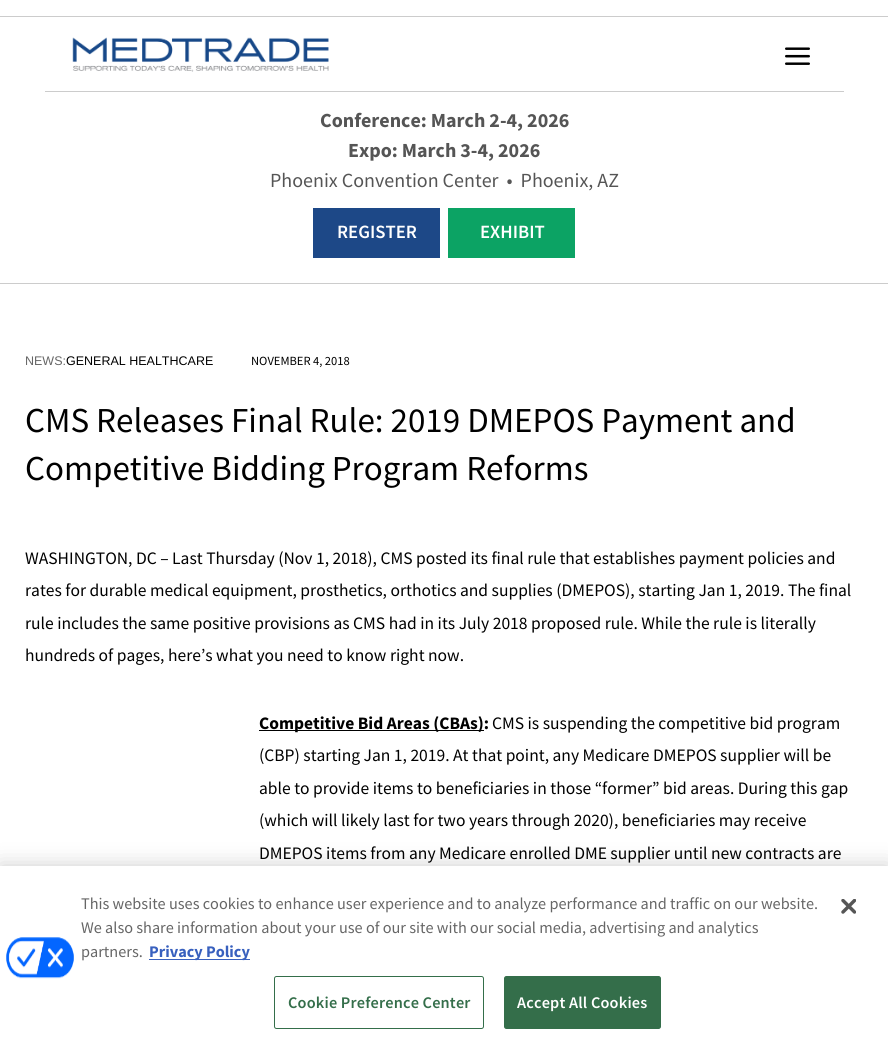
#include <cairo/cairo.h>
#include <math.h>
#include <stddef.h>


static void draw_spaced(cairo_t *cr, double x, double y, const char *s, double letter, double word) {
  cairo_move_to(cr, x, y);
  while (*s) {
    char ch[5] = {0};
    int n = 0;
    do ch[n++] = *s++; while ((*s & 0xC0) == 0x80);
    cairo_show_text(cr, ch);
    cairo_rel_move_to(cr, letter + word * (*ch == ' '), 0);
  }
}

static void rounded_rect(cairo_t *cr, double x, double y, double w, double h, double r) {
  cairo_new_sub_path(cr);
  cairo_arc(cr, x + w - r, y + h - r, r, 0, M_PI / 2);
  cairo_arc(cr, x + r, y + h - r, r, M_PI / 2, M_PI);
  cairo_arc(cr, x + r, y + r, r, M_PI, 1.5 * M_PI);
  cairo_arc(cr, x + w - r, y + r, r, 1.5 * M_PI, 2 * M_PI);
  cairo_close_path(cr);
}

static void draw_shadow(cairo_t *cr, double x, double y, double w, double h, double r, double blur, double alpha) {
  cairo_push_group_with_content(cr, CAIRO_CONTENT_ALPHA);
  cairo_set_operator(cr, CAIRO_OPERATOR_SOURCE);
  for (int i = 15; i >= -15 && fmin(w, h) + blur * i / 3 > 0; i -= 2) {
    double e = blur * i / 6;
    cairo_set_source_rgba(cr, 0, 0, 0, alpha * erfc((i - 1) / 8.5) / 2);
    rounded_rect(cr, x - e, y - e, w + 2 * e, h + 2 * e, fmax(0, fmin(r + e + blur * .6, fmin(w, h) / 2 + e)));
    cairo_fill(cr);
  }
  cairo_pattern_t *soft = cairo_pop_group(cr);
  cairo_mask(cr, soft);
  cairo_pattern_destroy(soft);
}

static void draw_image(cairo_t *cr, const char *path, double x, double y, double w, double h) {
  cairo_surface_t *image = cairo_image_surface_create_from_png(path);
  cairo_save(cr);
  cairo_set_source_surface(cr, image, x, y);
  cairo_rectangle(cr, x, y, w, h);
  cairo_fill(cr);
  cairo_restore(cr);
  cairo_surface_destroy(image);
}

static void draw(cairo_t *cr) {
  cairo_set_source_rgb(cr, 1, 1, 1);
  cairo_paint(cr);
  cairo_set_source_rgb(cr, 204 / 255.0, 204 / 255.0, 204 / 255.0);
  cairo_rectangle(cr, 0, 283, 888, 1);
  cairo_fill(cr);
  cairo_rectangle(cr, 0, 16, 888, 1);
  cairo_fill(cr);
  cairo_rectangle(cr, 45, 91, 799, 1);
  cairo_fill(cr);
  draw_image(cr, "images/1.png", 72, 37, 257, 35);
  draw_image(cr, "images/2.png", 785, 47, 25, 18);
  cairo_set_source_rgb(cr, 29 / 255.0, 72 / 255.0, 135 / 255.0);
  cairo_rectangle(cr, 313, 208, 127, 50);
  cairo_fill(cr);
  cairo_set_source_rgb(cr, 12 / 255.0, 163 / 255.0, 100 / 255.0);
  cairo_rectangle(cr, 448, 208, 127, 50);
  cairo_fill(cr);
  cairo_set_source_rgb(cr, 0, 0, 0);
  cairo_rectangle(cr, 259, 730, 225, 1);
  cairo_fill(cr);
  cairo_set_source_rgb(cr, 0, 0, 0);
  draw_shadow(cr, 0, 866, 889, 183, 0, 11, 0.2);
  cairo_set_source_rgb(cr, 1, 1, 1);
  cairo_rectangle(cr, 0, 866, 888, 182);
  cairo_fill(cr);
  draw_image(cr, "images/3.png", 6, 937, 68, 42);
  cairo_set_source_rgb(cr, 56 / 255.0, 96 / 255.0, 190 / 255.0);
  cairo_rectangle(cr, 149, 959, 101, 1);
  cairo_fill(cr);
  rounded_rect(cr, 274.5, 976.5, 209, 52, 2);
  cairo_set_source_rgb(cr, 52 / 255.0, 110 / 255.0, 74 / 255.0);
  cairo_set_line_width(cr, 1);
  cairo_stroke(cr);
  rounded_rect(cr, 504.5, 976.5, 156, 52, 2);
  cairo_fill_preserve(cr);
  cairo_stroke(cr);
  draw_image(cr, "images/4.png", 841, 899, 15, 15);
  cairo_select_font_face(cr, "Source Sans Pro", CAIRO_FONT_SLANT_NORMAL, CAIRO_FONT_WEIGHT_BOLD);
  cairo_set_font_size(cr, 20);
  cairo_set_source_rgb(cr, 85 / 255.0, 85 / 255.0, 85 / 255.0);
  cairo_move_to(cr, 320, 127);
  cairo_show_text(cr, "Conference: March 2-4, 2026");
  cairo_move_to(cr, 348, 157);
  cairo_show_text(cr, "Expo: March 3-4, 2026");
  cairo_select_font_face(cr, "Source Sans Pro", CAIRO_FONT_SLANT_NORMAL, CAIRO_FONT_WEIGHT_NORMAL);
  cairo_move_to(cr, 270, 187);
  cairo_show_text(cr, "Phoenix Convention Center  •  Phoenix, AZ");
  cairo_select_font_face(cr, "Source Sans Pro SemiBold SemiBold", CAIRO_FONT_SLANT_NORMAL, CAIRO_FONT_WEIGHT_NORMAL);
  cairo_set_font_size(cr, 18.75);
  cairo_set_source_rgb(cr, 1, 1, 1);
  cairo_move_to(cr, 337, 238);
  cairo_show_text(cr, "REGISTER");
  cairo_move_to(cr, 480, 238);
  cairo_show_text(cr, "EXHIBIT");
  cairo_select_font_face(cr, "Liberation Sans", CAIRO_FONT_SLANT_NORMAL, CAIRO_FONT_WEIGHT_NORMAL);
  cairo_set_font_size(cr, 12.5);
  cairo_set_source_rgb(cr, 102 / 255.0, 102 / 255.0, 102 / 255.0);
  cairo_move_to(cr, 25, 365);
  cairo_show_text(cr, "NEWS:");
  cairo_set_source_rgb(cr, 0, 0, 0);
  cairo_move_to(cr, 66, 365);
  cairo_show_text(cr, "GENERAL HEALTHCARE");
  cairo_select_font_face(cr, "Source Sans Pro", CAIRO_FONT_SLANT_NORMAL, CAIRO_FONT_WEIGHT_NORMAL);
  cairo_move_to(cr, 251, 365);
  cairo_show_text(cr, "NOVEMBER 4, 2018");
  cairo_set_font_size(cr, 35);
  cairo_move_to(cr, 25, 432);
  cairo_show_text(cr, "CMS Releases Final Rule: 2019 DMEPOS Payment and");
  cairo_move_to(cr, 25, 480);
  cairo_show_text(cr, "Competitive Bidding Program Reforms");
  cairo_set_font_size(cr, 17.5);
  cairo_move_to(cr, 25, 564);
  cairo_show_text(cr, "WASHINGTON, DC – Last Thursday (Nov 1, 2018), CMS posted its final rule that establishes payment policies and");
  cairo_move_to(cr, 25, 596);
  cairo_show_text(cr, "rates for durable medical equipment, prosthetics, orthotics and supplies (DMEPOS), starting Jan 1, 2019. The final");
  cairo_move_to(cr, 25, 629);
  cairo_show_text(cr, "rule includes the same positive provisions as CMS had in its July 2018 proposed rule. While the rule is literally");
  cairo_move_to(cr, 25, 661);
  cairo_show_text(cr, "hundreds of pages, here’s what you need to know right now.");
  cairo_select_font_face(cr, "Source Sans Pro", CAIRO_FONT_SLANT_NORMAL, CAIRO_FONT_WEIGHT_BOLD);
  cairo_move_to(cr, 259, 729);
  cairo_show_text(cr, "Competitive Bid Areas (CBAs):");
  cairo_select_font_face(cr, "Source Sans Pro", CAIRO_FONT_SLANT_NORMAL, CAIRO_FONT_WEIGHT_NORMAL);
  cairo_move_to(cr, 492, 729);
  cairo_show_text(cr, "CMS is suspending the competitive bid program");
  cairo_move_to(cr, 259, 761);
  cairo_show_text(cr, "(CBP) starting Jan 1, 2019. At that point, any Medicare DMEPOS supplier will be");
  cairo_move_to(cr, 259, 794);
  cairo_show_text(cr, "able to provide items to beneficiaries in those “former” bid areas. During this gap");
  cairo_move_to(cr, 259, 826);
  cairo_show_text(cr, "(which will likely last for two years through 2020), beneficiaries may receive");
  cairo_move_to(cr, 259, 859);
  cairo_show_text(cr, "DMEPOS items from any Medicare enrolled DME supplier until new contracts are");
  cairo_set_font_size(cr, 16.25);
  cairo_set_source_rgb(cr, 102 / 255.0, 102 / 255.0, 102 / 255.0);
  cairo_move_to(cr, 81, 909);
  cairo_show_text(cr, "This website uses cookies to enhance user experience and to analyze performance and traffic on our website.");
  cairo_move_to(cr, 81, 933);
  cairo_show_text(cr, "We also share information about your use of our site with our social media, advertising and analytics");
  cairo_move_to(cr, 81, 957);
  cairo_show_text(cr, "partners.");
  cairo_select_font_face(cr, "Source Sans Pro", CAIRO_FONT_SLANT_NORMAL, CAIRO_FONT_WEIGHT_BOLD);
  cairo_set_source_rgb(cr, 56 / 255.0, 96 / 255.0, 190 / 255.0);
  cairo_move_to(cr, 149, 957);
  cairo_show_text(cr, "Privacy Policy");
  cairo_select_font_face(cr, "Source Sans Pro SemiBold SemiBold", CAIRO_FONT_SLANT_NORMAL, CAIRO_FONT_WEIGHT_NORMAL);
  cairo_set_source_rgb(cr, 52 / 255.0, 110 / 255.0, 74 / 255.0);
  draw_spaced(cr, 288, 1008, "Cookie Preference Center", 0.2, 0);
  cairo_set_source_rgb(cr, 1, 1, 1);
  draw_spaced(cr, 517, 1008, "Accept All Cookies", 0.2, 0);
}

int main(void) {
  cairo_surface_t *surface = cairo_image_surface_create(CAIRO_FORMAT_RGB24, 888, 1048);
  cairo_t *cr = cairo_create(surface);
  cairo_font_options_t *options = cairo_font_options_create();
  cairo_font_options_set_hint_metrics(options, CAIRO_HINT_METRICS_OFF);
  cairo_font_options_set_hint_style(options, CAIRO_HINT_STYLE_NONE);
  cairo_set_font_options(cr, options);
  cairo_set_miter_limit(cr, 4);
  draw(cr);
  cairo_surface_write_to_png(surface, "out.png");
  cairo_font_options_destroy(options);
  cairo_destroy(cr);
  cairo_surface_destroy(surface);
  return 0;
}
